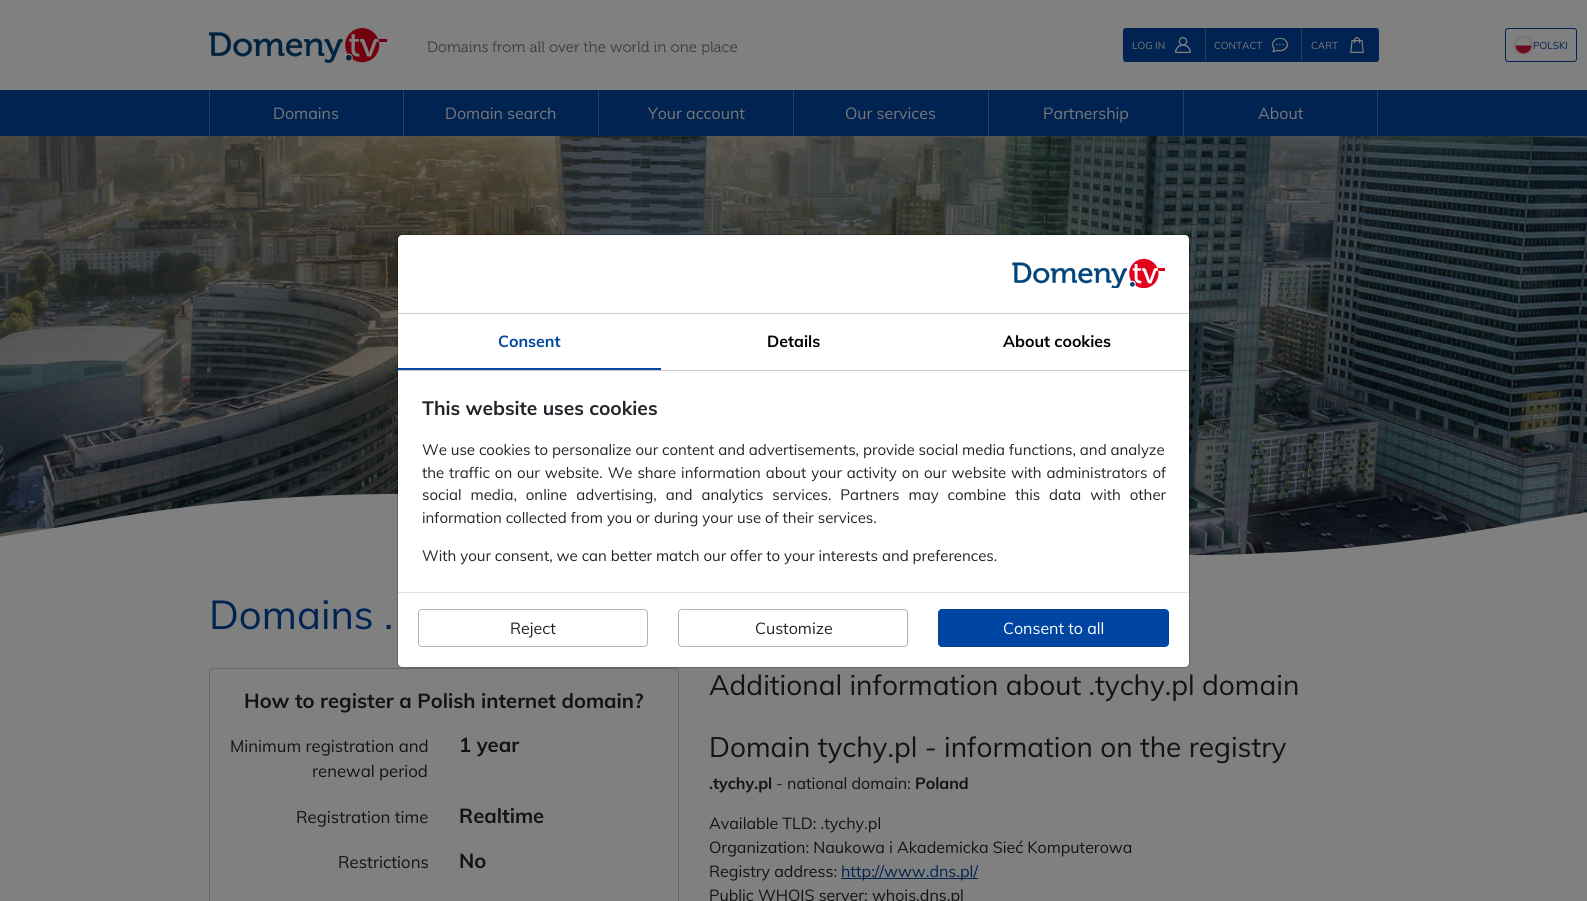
#include <cairo/cairo.h>
#include <math.h>
#include <stddef.h>


static void draw_spaced(cairo_t *cr, double x, double y, const char *s, double letter, double word) {
  cairo_move_to(cr, x, y);
  while (*s) {
    char ch[5] = {0};
    int n = 0;
    do ch[n++] = *s++; while ((*s & 0xC0) == 0x80);
    cairo_show_text(cr, ch);
    cairo_rel_move_to(cr, letter + word * (*ch == ' '), 0);
  }
}

static void rounded_rect(cairo_t *cr, double x, double y, double w, double h, double r) {
  cairo_new_sub_path(cr);
  cairo_arc(cr, x + w - r, y + h - r, r, 0, M_PI / 2);
  cairo_arc(cr, x + r, y + h - r, r, M_PI / 2, M_PI);
  cairo_arc(cr, x + r, y + r, r, M_PI, 1.5 * M_PI);
  cairo_arc(cr, x + w - r, y + r, r, 1.5 * M_PI, 2 * M_PI);
  cairo_close_path(cr);
}

static void draw_image(cairo_t *cr, const char *path, double x, double y, double w, double h) {
  cairo_surface_t *image = cairo_image_surface_create_from_png(path);
  cairo_save(cr);
  cairo_set_source_surface(cr, image, x, y);
  cairo_rectangle(cr, x, y, w, h);
  cairo_fill(cr);
  cairo_restore(cr);
  cairo_surface_destroy(image);
}

static void draw(cairo_t *cr) {
  cairo_set_source_rgb(cr, 128 / 255.0, 128 / 255.0, 128 / 255.0);
  cairo_paint(cr);
  draw_image(cr, "images/1.png", 209, 28, 178, 35);
  cairo_set_source_rgb(cr, 0, 35 / 255.0, 81 / 255.0);
  cairo_new_path(cr);
  cairo_move_to(cr, 1126, 28.5);
  cairo_line_to(cr, 1204.5, 28.5);
  cairo_line_to(cr, 1204.5, 61.5);
  cairo_line_to(cr, 1126, 61.5);
  cairo_curve_to(cr, 1124.5, 61.5, 1123.5, 60.5, 1123.5, 59);
  cairo_line_to(cr, 1123.5, 31);
  cairo_curve_to(cr, 1123.5, 29.5, 1124.5, 28.5, 1126, 28.5);
  cairo_close_path(cr);
  cairo_fill_preserve(cr);
  cairo_set_line_width(cr, 1);
  cairo_stroke(cr);
  draw_image(cr, "images/2.png", 1175, 37, 16, 16);
  cairo_rectangle(cr, 1205, 28, 97, 34);
  cairo_fill(cr);
  cairo_set_source_rgb(cr, 39 / 255.0, 63 / 255.0, 95 / 255.0);
  cairo_new_path(cr);
  cairo_move_to(cr, 1302, 28);
  cairo_line_to(cr, 1302, 62);
  cairo_line_to(cr, 1301, 61);
  cairo_line_to(cr, 1301, 29);
  cairo_close_path(cr);
  cairo_fill(cr);
  cairo_set_source_rgb(cr, 0, 35 / 255.0, 81 / 255.0);
  cairo_new_path(cr);
  cairo_move_to(cr, 1302, 62);
  cairo_line_to(cr, 1205, 62);
  cairo_line_to(cr, 1206, 61);
  cairo_line_to(cr, 1301, 61);
  cairo_close_path(cr);
  cairo_fill(cr);
  cairo_set_source_rgb(cr, 39 / 255.0, 63 / 255.0, 95 / 255.0);
  cairo_new_path(cr);
  cairo_move_to(cr, 1205, 62);
  cairo_line_to(cr, 1205, 28);
  cairo_line_to(cr, 1206, 29);
  cairo_line_to(cr, 1206, 61);
  cairo_close_path(cr);
  cairo_fill(cr);
  draw_image(cr, "images/3.png", 1272, 37, 16, 16);
  cairo_set_source_rgb(cr, 0, 35 / 255.0, 81 / 255.0);
  cairo_new_path(cr);
  cairo_move_to(cr, 1302.5, 28.5);
  cairo_line_to(cr, 1376, 28.5);
  cairo_curve_to(cr, 1377.5, 28.5, 1378.5, 29.5, 1378.5, 31);
  cairo_line_to(cr, 1378.5, 59);
  cairo_curve_to(cr, 1378.5, 60.5, 1377.5, 61.5, 1376, 61.5);
  cairo_line_to(cr, 1302.5, 61.5);
  cairo_close_path(cr);
  cairo_fill_preserve(cr);
  cairo_stroke(cr);
  draw_image(cr, "images/4.png", 1350, 37, 14, 16);
  rounded_rect(cr, 1505.5, 28.5, 71, 33, 2.5);
  cairo_stroke(cr);
  draw_image(cr, "images/5.png", 1514, 36, 19, 19);
  draw_image(cr, "images/6.png", 0, 136, 1587, 419);
  cairo_rectangle(cr, 0, 90, 1587, 46);
  cairo_fill(cr);
  cairo_set_source_rgb(cr, 39 / 255.0, 63 / 255.0, 95 / 255.0);
  cairo_rectangle(cr, 403, 90, 1, 46);
  cairo_fill(cr);
  cairo_rectangle(cr, 209, 90, 1, 46);
  cairo_fill(cr);
  cairo_rectangle(cr, 598, 90, 1, 46);
  cairo_fill(cr);
  cairo_rectangle(cr, 793, 90, 1, 46);
  cairo_fill(cr);
  cairo_rectangle(cr, 988, 90, 1, 46);
  cairo_fill(cr);
  cairo_rectangle(cr, 1183, 90, 1, 46);
  cairo_fill(cr);
  cairo_rectangle(cr, 1377, 90, 1, 46);
  cairo_fill(cr);
  cairo_set_source_rgb(cr, 1, 1, 1);
  rounded_rect(cr, 398, 235, 791, 432, 4);
  cairo_fill(cr);
  rounded_rect(cr, 397.5, 234.5, 792, 433, 4.5);
  cairo_set_source_rgba(cr, 0, 0, 0, 0.2);
  cairo_stroke(cr);
  draw_image(cr, "images/7.png", 1012, 258, 153, 30);
  cairo_set_source_rgb(cr, 204 / 255.0, 204 / 255.0, 204 / 255.0);
  cairo_rectangle(cr, 398, 313, 791, 1);
  cairo_fill(cr);
  cairo_rectangle(cr, 398, 370, 791, 1);
  cairo_fill(cr);
  cairo_set_source_rgb(cr, 0, 69 / 255.0, 161 / 255.0);
  cairo_rectangle(cr, 398, 368, 263, 2);
  cairo_fill(cr);
  cairo_set_source_rgb(cr, 222 / 255.0, 226 / 255.0, 230 / 255.0);
  cairo_rectangle(cr, 398, 592, 791, 1);
  cairo_fill(cr);
  rounded_rect(cr, 418.5, 609.5, 229, 37, 3.5);
  cairo_set_source_rgb(cr, 173 / 255.0, 181 / 255.0, 189 / 255.0);
  cairo_stroke(cr);
  rounded_rect(cr, 678.5, 609.5, 229, 37, 3.5);
  cairo_stroke(cr);
  cairo_set_source_rgb(cr, 0, 69 / 255.0, 161 / 255.0);
  rounded_rect(cr, 938.5, 609.5, 230, 37, 3.5);
  cairo_fill_preserve(cr);
  cairo_stroke(cr);
  rounded_rect(cr, 209.5, 668.5, 469, 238, 4.5);
  cairo_set_source_rgb(cr, 102 / 255.0, 102 / 255.0, 102 / 255.0);
  cairo_stroke(cr);
  cairo_set_source_rgb(cr, 0, 35 / 255.0, 81 / 255.0);
  cairo_rectangle(cr, 841, 878, 137, 1);
  cairo_fill(cr);
  cairo_select_font_face(cr, "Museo", CAIRO_FONT_SLANT_NORMAL, CAIRO_FONT_WEIGHT_NORMAL);
  cairo_set_font_size(cr, 15);
  cairo_set_source_rgb(cr, 54 / 255.0, 59 / 255.0, 63 / 255.0);
  cairo_move_to(cr, 427, 52);
  cairo_show_text(cr, "Domains from all over the world in one place");
  cairo_select_font_face(cr, "Muli", CAIRO_FONT_SLANT_NORMAL, CAIRO_FONT_WEIGHT_NORMAL);
  cairo_set_font_size(cr, 10);
  cairo_set_source_rgb(cr, 121 / 255.0, 121 / 255.0, 121 / 255.0);
  cairo_move_to(cr, 1132, 49);
  cairo_show_text(cr, "LOG IN");
  cairo_move_to(cr, 1214, 49);
  cairo_show_text(cr, "CONTACT");
  cairo_move_to(cr, 1311, 49);
  cairo_show_text(cr, "CART");
  cairo_set_source_rgb(cr, 0, 35 / 255.0, 81 / 255.0);
  cairo_move_to(cr, 1533, 49);
  cairo_show_text(cr, "POLSKI");
  cairo_set_font_size(cr, 16);
  cairo_set_source_rgb(cr, 121 / 255.0, 121 / 255.0, 121 / 255.0);
  cairo_move_to(cr, 273, 119);
  cairo_show_text(cr, "Domains");
  cairo_move_to(cr, 445, 119);
  cairo_show_text(cr, "Domain search");
  cairo_move_to(cr, 648, 119);
  cairo_show_text(cr, "Your account");
  cairo_move_to(cr, 845, 119);
  cairo_show_text(cr, "Our services");
  cairo_move_to(cr, 1043, 119);
  cairo_show_text(cr, "Partnership");
  cairo_move_to(cr, 1258, 119);
  cairo_show_text(cr, "About");
  cairo_select_font_face(cr, "Muli", CAIRO_FONT_SLANT_NORMAL, CAIRO_FONT_WEIGHT_BOLD);
  cairo_set_source_rgb(cr, 0, 69 / 255.0, 161 / 255.0);
  cairo_move_to(cr, 498, 347);
  cairo_show_text(cr, "Consent");
  cairo_set_source_rgb(cr, 0, 0, 0);
  cairo_move_to(cr, 767, 347);
  cairo_show_text(cr, "Details");
  cairo_move_to(cr, 1003, 347);
  cairo_show_text(cr, "About cookies");
  cairo_set_font_size(cr, 19.25);
  cairo_set_source_rgb(cr, 33 / 255.0, 37 / 255.0, 41 / 255.0);
  cairo_move_to(cr, 422, 415);
  cairo_show_text(cr, "This website uses cookies");
  cairo_select_font_face(cr, "Muli", CAIRO_FONT_SLANT_NORMAL, CAIRO_FONT_WEIGHT_NORMAL);
  cairo_set_font_size(cr, 15);
  cairo_move_to(cr, 422, 455);
  cairo_show_text(cr, "We use cookies to personalize our content and advertisements, provide social media functions, and analyze");
  draw_spaced(cr, 422, 478, "the traffic on our website. We share information about your activity on our website with administrators of", 0, 1);
  draw_spaced(cr, 422, 500, "social media, online advertising, and analytics services. Partners may combine this data with other", 0, 5);
  cairo_move_to(cr, 422, 523);
  cairo_show_text(cr, "information collected from you or during your use of their services.");
  cairo_move_to(cr, 422, 561);
  cairo_show_text(cr, "With your consent, we can better match our offer to your interests and preferences.");
  cairo_set_font_size(cr, 16);
  cairo_move_to(cr, 510, 634);
  cairo_show_text(cr, "Reject");
  cairo_move_to(cr, 755, 634);
  cairo_show_text(cr, "Customize");
  cairo_set_source_rgb(cr, 1, 1, 1);
  cairo_move_to(cr, 1003, 634);
  cairo_show_text(cr, "Consent to all");
  cairo_set_font_size(cr, 40);
  cairo_set_source_rgb(cr, 0, 35 / 255.0, 81 / 255.0);
  cairo_move_to(cr, 209, 629);
  cairo_show_text(cr, "Domains .");
  cairo_select_font_face(cr, "Muli", CAIRO_FONT_SLANT_NORMAL, CAIRO_FONT_WEIGHT_BOLD);
  cairo_set_font_size(cr, 20.2);
  cairo_set_source_rgb(cr, 17 / 255.0, 19 / 255.0, 21 / 255.0);
  cairo_move_to(cr, 244, 708);
  cairo_show_text(cr, "How to register a Polish internet domain?");
  cairo_select_font_face(cr, "Muli", CAIRO_FONT_SLANT_NORMAL, CAIRO_FONT_WEIGHT_NORMAL);
  cairo_set_font_size(cr, 16.75);
  cairo_move_to(cr, 230, 752);
  cairo_show_text(cr, "Minimum registration and");
  cairo_move_to(cr, 312, 777);
  cairo_show_text(cr, "renewal period");
  cairo_select_font_face(cr, "Muli", CAIRO_FONT_SLANT_NORMAL, CAIRO_FONT_WEIGHT_BOLD);
  cairo_set_font_size(cr, 20.2);
  cairo_move_to(cr, 459, 752);
  cairo_show_text(cr, "1 year");
  cairo_select_font_face(cr, "Muli", CAIRO_FONT_SLANT_NORMAL, CAIRO_FONT_WEIGHT_NORMAL);
  cairo_set_font_size(cr, 16.75);
  cairo_move_to(cr, 296, 823);
  cairo_show_text(cr, "Registration time");
  cairo_select_font_face(cr, "Muli", CAIRO_FONT_SLANT_NORMAL, CAIRO_FONT_WEIGHT_BOLD);
  cairo_set_font_size(cr, 20.2);
  cairo_move_to(cr, 459, 823);
  cairo_show_text(cr, "Realtime");
  cairo_select_font_face(cr, "Muli", CAIRO_FONT_SLANT_NORMAL, CAIRO_FONT_WEIGHT_NORMAL);
  cairo_set_font_size(cr, 16.75);
  cairo_move_to(cr, 338, 868);
  cairo_show_text(cr, "Restrictions");
  cairo_select_font_face(cr, "Muli", CAIRO_FONT_SLANT_NORMAL, CAIRO_FONT_WEIGHT_BOLD);
  cairo_set_font_size(cr, 20.2);
  cairo_move_to(cr, 459, 868);
  cairo_show_text(cr, "No");
  cairo_select_font_face(cr, "Muli", CAIRO_FONT_SLANT_NORMAL, CAIRO_FONT_WEIGHT_NORMAL);
  cairo_set_font_size(cr, 28);
  cairo_move_to(cr, 709, 695);
  cairo_show_text(cr, "Additional information about .tychy.pl domain");
  cairo_move_to(cr, 709, 757);
  cairo_show_text(cr, "Domain tychy.pl - information on the registry");
  cairo_select_font_face(cr, "Muli", CAIRO_FONT_SLANT_NORMAL, CAIRO_FONT_WEIGHT_BOLD);
  cairo_set_font_size(cr, 16);
  cairo_move_to(cr, 709, 789);
  cairo_show_text(cr, ".tychy.pl");
  cairo_select_font_face(cr, "Muli", CAIRO_FONT_SLANT_NORMAL, CAIRO_FONT_WEIGHT_NORMAL);
  cairo_move_to(cr, 776, 789);
  cairo_show_text(cr, "- national domain:");
  cairo_select_font_face(cr, "Muli", CAIRO_FONT_SLANT_NORMAL, CAIRO_FONT_WEIGHT_BOLD);
  cairo_move_to(cr, 915, 789);
  cairo_show_text(cr, "Poland");
  cairo_select_font_face(cr, "Muli", CAIRO_FONT_SLANT_NORMAL, CAIRO_FONT_WEIGHT_NORMAL);
  cairo_move_to(cr, 709, 829);
  cairo_show_text(cr, "Available TLD: .tychy.pl");
  cairo_move_to(cr, 709, 853);
  cairo_show_text(cr, "Organization: Naukowa i Akademicka Sieć Komputerowa");
  cairo_move_to(cr, 709, 877);
  cairo_show_text(cr, "Registry address:");
  cairo_set_source_rgb(cr, 0, 35 / 255.0, 81 / 255.0);
  cairo_move_to(cr, 841, 877);
  cairo_show_text(cr, "http://www.dns.pl/");
  cairo_set_source_rgb(cr, 17 / 255.0, 19 / 255.0, 21 / 255.0);
  cairo_move_to(cr, 709, 901);
  cairo_show_text(cr, "Public WHOIS server: whois.dns.pl");
}

int main(void) {
  cairo_surface_t *surface = cairo_image_surface_create(CAIRO_FORMAT_RGB24, 1587, 901);
  cairo_t *cr = cairo_create(surface);
  cairo_font_options_t *options = cairo_font_options_create();
  cairo_font_options_set_hint_metrics(options, CAIRO_HINT_METRICS_OFF);
  cairo_font_options_set_hint_style(options, CAIRO_HINT_STYLE_NONE);
  cairo_set_font_options(cr, options);
  cairo_set_miter_limit(cr, 4);
  draw(cr);
  cairo_surface_write_to_png(surface, "out.png");
  cairo_font_options_destroy(options);
  cairo_destroy(cr);
  cairo_surface_destroy(surface);
  return 0;
}
